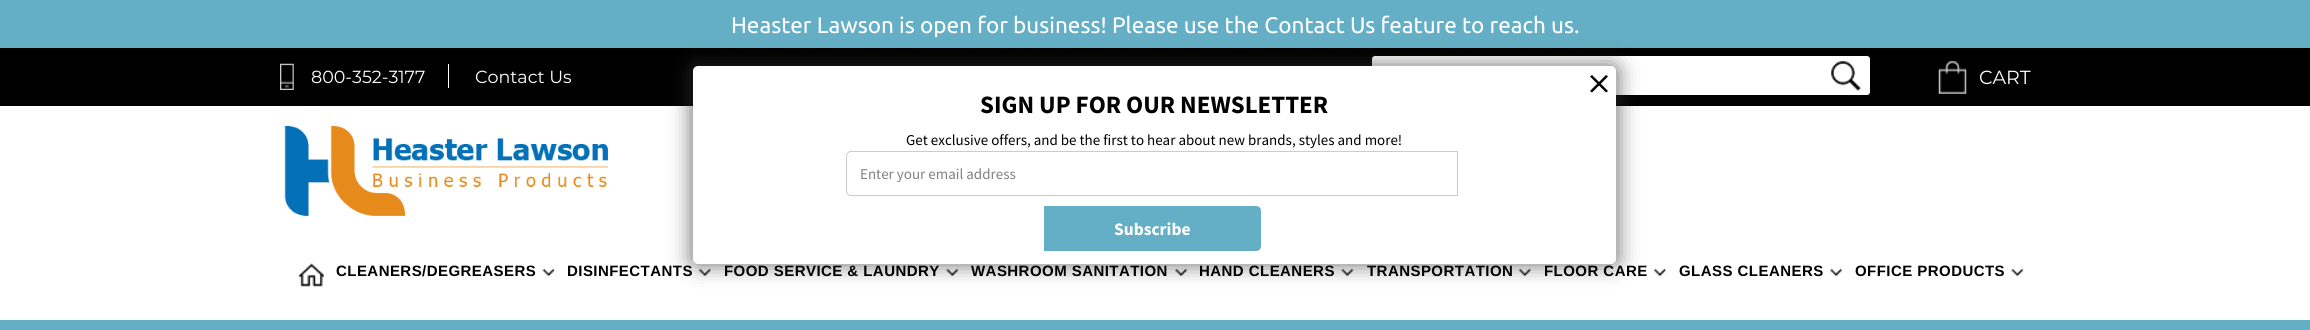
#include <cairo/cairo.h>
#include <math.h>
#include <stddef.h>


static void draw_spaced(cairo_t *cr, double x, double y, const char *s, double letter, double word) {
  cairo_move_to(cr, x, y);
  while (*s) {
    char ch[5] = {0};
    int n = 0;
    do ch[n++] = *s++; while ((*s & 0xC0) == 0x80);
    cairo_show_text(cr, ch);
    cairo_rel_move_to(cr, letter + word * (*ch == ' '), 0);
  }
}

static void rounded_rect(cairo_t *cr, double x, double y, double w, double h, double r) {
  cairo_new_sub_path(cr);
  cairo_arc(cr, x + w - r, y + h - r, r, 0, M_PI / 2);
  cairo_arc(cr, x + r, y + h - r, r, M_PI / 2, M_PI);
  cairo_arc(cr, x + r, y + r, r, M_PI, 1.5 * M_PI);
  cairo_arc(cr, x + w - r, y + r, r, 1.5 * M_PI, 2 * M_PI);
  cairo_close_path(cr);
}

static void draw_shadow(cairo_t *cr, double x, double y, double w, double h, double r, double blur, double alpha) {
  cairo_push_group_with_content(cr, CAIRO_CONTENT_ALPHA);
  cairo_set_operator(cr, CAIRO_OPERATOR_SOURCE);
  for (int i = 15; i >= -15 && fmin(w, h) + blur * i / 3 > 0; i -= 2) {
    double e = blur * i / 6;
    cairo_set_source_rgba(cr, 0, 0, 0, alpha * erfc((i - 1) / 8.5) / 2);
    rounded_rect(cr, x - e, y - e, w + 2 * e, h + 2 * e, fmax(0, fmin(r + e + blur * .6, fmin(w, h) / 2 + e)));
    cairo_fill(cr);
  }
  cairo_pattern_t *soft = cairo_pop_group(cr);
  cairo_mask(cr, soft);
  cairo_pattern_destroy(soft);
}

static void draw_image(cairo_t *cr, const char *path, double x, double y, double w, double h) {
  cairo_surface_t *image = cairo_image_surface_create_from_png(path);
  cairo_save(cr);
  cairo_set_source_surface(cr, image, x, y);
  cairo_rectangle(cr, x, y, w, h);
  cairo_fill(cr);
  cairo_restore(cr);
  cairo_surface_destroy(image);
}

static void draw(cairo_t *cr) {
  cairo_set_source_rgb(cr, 1, 1, 1);
  cairo_paint(cr);
  cairo_set_source_rgb(cr, 100 / 255.0, 175 / 255.0, 197 / 255.0);
  cairo_rectangle(cr, 0, 0, 2310, 48);
  cairo_fill(cr);
  cairo_set_source_rgb(cr, 0, 0, 0);
  cairo_rectangle(cr, 0, 48, 2310, 58);
  cairo_fill(cr);
  draw_image(cr, "images/1.png", 280, 63, 14, 27);
  cairo_set_source_rgb(cr, 1, 1, 1);
  cairo_rectangle(cr, 448, 64, 1, 24);
  cairo_fill(cr);
  rounded_rect(cr, 1371.5, 55.5, 499, 40, 3.5);
  cairo_fill_preserve(cr);
  cairo_set_source_rgb(cr, 0, 0, 0);
  cairo_set_line_width(cr, 1);
  cairo_stroke(cr);
  draw_image(cr, "images/2.png", 1831, 61, 31, 31);
  draw_image(cr, "images/3.png", 1938, 61, 29, 33);
  draw_image(cr, "images/4.png", 284, 126, 324, 90);
  draw_image(cr, "images/5.png", 298, 263, 26, 24);
  draw_image(cr, "images/6.png", 542, 268, 13, 9);
  draw_image(cr, "images/7.png", 698, 268, 14, 9);
  draw_image(cr, "images/8.png", 946, 268, 13, 9);
  draw_image(cr, "images/9.png", 1175, 268, 13, 9);
  draw_image(cr, "images/8.png", 1341, 268, 13, 9);
  draw_image(cr, "images/10.png", 1518, 268, 14, 9);
  draw_image(cr, "images/7.png", 1653, 268, 14, 9);
  draw_image(cr, "images/9.png", 1830, 268, 13, 9);
  draw_image(cr, "images/8.png", 2011, 268, 13, 9);
  cairo_set_source_rgb(cr, 100 / 255.0, 175 / 255.0, 197 / 255.0);
  cairo_rectangle(cr, 0, 320, 2310, 10);
  cairo_fill(cr);
  cairo_set_source_rgb(cr, 50 / 255.0, 50 / 255.0, 50 / 255.0);
  draw_shadow(cr, 691, 65, 927, 200, 6, 10.5, 0.69);
  cairo_set_source_rgb(cr, 1, 1, 1);
  rounded_rect(cr, 693, 66, 923, 198, 5);
  cairo_fill(cr);
  cairo_set_source_rgb(cr, 0, 0, 0);
  cairo_new_path(cr);
  cairo_move_to(cr, 1592, 75);
  cairo_line_to(cr, 1608, 91);
  cairo_line_to(cr, 1606, 92.5);
  cairo_line_to(cr, 1590, 76.5);
  cairo_close_path(cr);
  cairo_fill(cr);
  cairo_new_path(cr);
  cairo_move_to(cr, 1590, 91);
  cairo_line_to(cr, 1606, 75);
  cairo_line_to(cr, 1608, 76.5);
  cairo_line_to(cr, 1592, 92.5);
  cairo_close_path(cr);
  cairo_fill(cr);
  cairo_new_path(cr);
  cairo_move_to(cr, 851, 151.5);
  cairo_line_to(cr, 1457.5, 151.5);
  cairo_line_to(cr, 1457.5, 195.5);
  cairo_line_to(cr, 851, 195.5);
  cairo_curve_to(cr, 848.5, 195.5, 846.5, 193.5, 846.5, 191);
  cairo_line_to(cr, 846.5, 156);
  cairo_curve_to(cr, 846.5, 153.5, 848.5, 151.5, 851, 151.5);
  cairo_close_path(cr);
  cairo_set_source_rgb(cr, 204 / 255.0, 204 / 255.0, 204 / 255.0);
  cairo_stroke(cr);
  cairo_set_source_rgb(cr, 100 / 255.0, 175 / 255.0, 197 / 255.0);
  cairo_new_path(cr);
  cairo_move_to(cr, 1044, 206);
  cairo_line_to(cr, 1256, 206);
  cairo_curve_to(cr, 1259, 206, 1261, 208, 1261, 211);
  cairo_line_to(cr, 1261, 246);
  cairo_curve_to(cr, 1261, 249, 1259, 251, 1256, 251);
  cairo_line_to(cr, 1044, 251);
  cairo_close_path(cr);
  cairo_fill(cr);
  cairo_select_font_face(cr, "Ubuntu", CAIRO_FONT_SLANT_NORMAL, CAIRO_FONT_WEIGHT_NORMAL);
  cairo_set_font_size(cr, 22.5);
  cairo_set_source_rgb(cr, 1, 1, 1);
  cairo_move_to(cr, 731, 33);
  cairo_show_text(cr, "Heaster Lawson is open for business! Please use the Contact Us feature to reach us.");
  cairo_select_font_face(cr, "Montserrat", CAIRO_FONT_SLANT_NORMAL, CAIRO_FONT_WEIGHT_NORMAL);
  cairo_set_font_size(cr, 17.5);
  cairo_move_to(cr, 311, 83);
  cairo_show_text(cr, "800-352-3177");
  cairo_move_to(cr, 475, 83);
  cairo_show_text(cr, "Contact Us");
  cairo_set_font_size(cr, 19);
  cairo_move_to(cr, 1979, 84);
  cairo_show_text(cr, "CART");
  cairo_select_font_face(cr, "Liberation Sans", CAIRO_FONT_SLANT_NORMAL, CAIRO_FONT_WEIGHT_BOLD);
  cairo_set_font_size(cr, 15);
  cairo_set_source_rgb(cr, 0, 0, 0);
  draw_spaced(cr, 336, 276, "CLEANERS/DEGREASERS", 0.45, 0);
  draw_spaced(cr, 567, 276, "DISINFECTANTS", 0.45, 0);
  draw_spaced(cr, 724, 276, "FOOD SERVICE & LAUNDRY", 0.45, 0);
  draw_spaced(cr, 971, 276, "WASHROOM SANITATION", 0.45, 0);
  draw_spaced(cr, 1199, 276, "HAND CLEANERS", 0.45, 0);
  draw_spaced(cr, 1367, 276, "TRANSPORTATION", 0.45, 0);
  draw_spaced(cr, 1544, 276, "FLOOR CARE", 0.45, 0);
  draw_spaced(cr, 1679, 276, "GLASS CLEANERS", 0.45, 0);
  draw_spaced(cr, 1855, 276, "OFFICE PRODUCTS", 0.45, 0);
  cairo_select_font_face(cr, "Source Sans Pro", CAIRO_FONT_SLANT_NORMAL, CAIRO_FONT_WEIGHT_BOLD);
  cairo_set_font_size(cr, 25);
  cairo_move_to(cr, 980, 113);
  cairo_show_text(cr, "SIGN UP FOR OUR NEWSLETTER");
  cairo_select_font_face(cr, "Source Sans Pro", CAIRO_FONT_SLANT_NORMAL, CAIRO_FONT_WEIGHT_NORMAL);
  cairo_set_font_size(cr, 15);
  cairo_move_to(cr, 906, 145);
  cairo_show_text(cr, "Get exclusive offers, and be the first to hear about new brands, styles and more!");
  cairo_set_source_rgb(cr, 129 / 255.0, 129 / 255.0, 129 / 255.0);
  cairo_move_to(cr, 860, 179);
  cairo_show_text(cr, "Enter your email address");
  cairo_select_font_face(cr, "Source Sans Pro", CAIRO_FONT_SLANT_NORMAL, CAIRO_FONT_WEIGHT_BOLD);
  cairo_set_font_size(cr, 17.5);
  cairo_set_source_rgb(cr, 1, 1, 1);
  cairo_move_to(cr, 1114, 235);
  cairo_show_text(cr, "Subscribe");
}

int main(void) {
  cairo_surface_t *surface = cairo_image_surface_create(CAIRO_FORMAT_RGB24, 2310, 330);
  cairo_t *cr = cairo_create(surface);
  cairo_font_options_t *options = cairo_font_options_create();
  cairo_font_options_set_hint_metrics(options, CAIRO_HINT_METRICS_OFF);
  cairo_font_options_set_hint_style(options, CAIRO_HINT_STYLE_NONE);
  cairo_set_font_options(cr, options);
  cairo_set_miter_limit(cr, 4);
  draw(cr);
  cairo_surface_write_to_png(surface, "out.png");
  cairo_font_options_destroy(options);
  cairo_destroy(cr);
  cairo_surface_destroy(surface);
  return 0;
}
